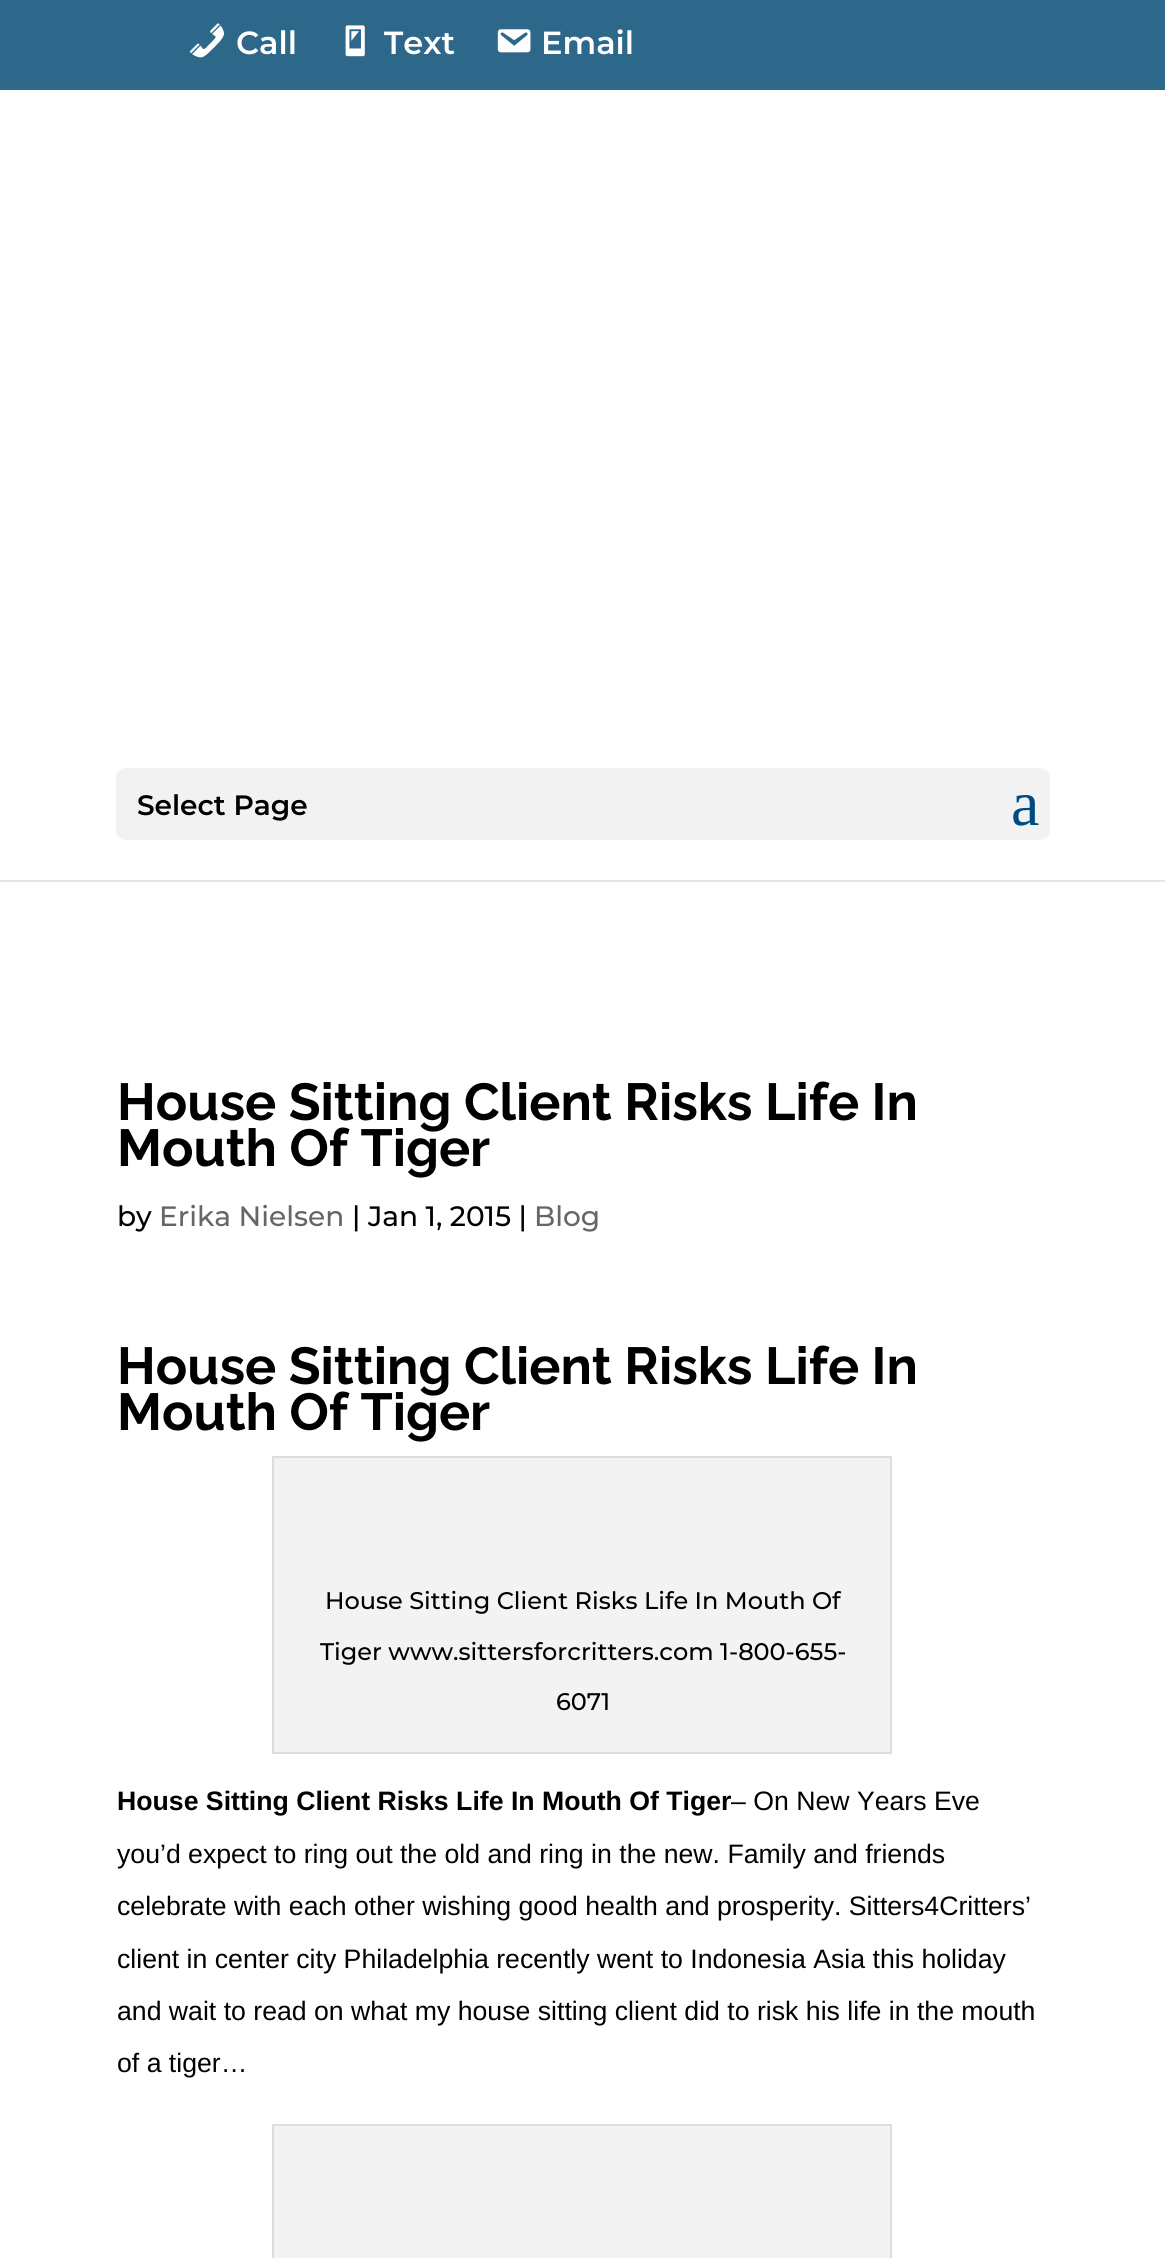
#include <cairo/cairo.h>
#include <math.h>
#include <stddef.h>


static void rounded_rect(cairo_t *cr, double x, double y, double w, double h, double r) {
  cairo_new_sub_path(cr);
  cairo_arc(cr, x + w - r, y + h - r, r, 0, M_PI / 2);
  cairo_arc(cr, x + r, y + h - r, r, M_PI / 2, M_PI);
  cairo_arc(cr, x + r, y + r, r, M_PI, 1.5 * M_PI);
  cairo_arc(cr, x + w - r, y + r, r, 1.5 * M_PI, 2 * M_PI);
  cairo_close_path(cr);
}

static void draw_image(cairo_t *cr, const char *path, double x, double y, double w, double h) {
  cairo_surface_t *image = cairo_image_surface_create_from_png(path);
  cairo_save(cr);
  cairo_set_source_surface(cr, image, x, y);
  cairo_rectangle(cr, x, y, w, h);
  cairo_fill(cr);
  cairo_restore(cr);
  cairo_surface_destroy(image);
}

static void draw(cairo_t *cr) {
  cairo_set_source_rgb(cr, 1, 1, 1);
  cairo_paint(cr);
  cairo_set_source_rgb(cr, 45 / 255.0, 103 / 255.0, 137 / 255.0);
  cairo_rectangle(cr, 0, 0, 1165, 90);
  cairo_fill(cr);
  draw_image(cr, "images/1.png", 190, 23, 34, 35);
  draw_image(cr, "images/2.png", 345, 25, 20, 32);
  draw_image(cr, "images/3.png", 497, 29, 34, 24);
  cairo_set_source_rgb(cr, 230 / 255.0, 230 / 255.0, 230 / 255.0);
  cairo_rectangle(cr, 0, 880, 1165, 2);
  cairo_fill(cr);
  cairo_set_source_rgb(cr, 242 / 255.0, 242 / 255.0, 242 / 255.0);
  rounded_rect(cr, 116, 768, 934, 72, 10);
  cairo_fill(cr);
  cairo_set_source_rgb(cr, 243 / 255.0, 243 / 255.0, 243 / 255.0);
  cairo_rectangle(cr, 273, 1457, 618, 296);
  cairo_fill_preserve(cr);
  cairo_set_source_rgb(cr, 221 / 255.0, 221 / 255.0, 221 / 255.0);
  cairo_stroke(cr);
  cairo_set_source_rgb(cr, 243 / 255.0, 243 / 255.0, 243 / 255.0);
  cairo_rectangle(cr, 273, 2125, 618, 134);
  cairo_fill_preserve(cr);
  cairo_set_source_rgb(cr, 221 / 255.0, 221 / 255.0, 221 / 255.0);
  cairo_stroke(cr);
  cairo_select_font_face(cr, "Montserrat SemiBold", CAIRO_FONT_SLANT_NORMAL, CAIRO_FONT_WEIGHT_NORMAL);
  cairo_set_font_size(cr, 32);
  cairo_set_source_rgb(cr, 1, 1, 1);
  cairo_move_to(cr, 236, 54);
  cairo_show_text(cr, "Call");
  cairo_move_to(cr, 384, 54);
  cairo_show_text(cr, "Text");
  cairo_move_to(cr, 541, 54);
  cairo_show_text(cr, "Email");
  cairo_set_font_size(cr, 28);
  cairo_set_source_rgb(cr, 0, 0, 0);
  cairo_move_to(cr, 137, 815);
  cairo_show_text(cr, "Select Page");
  cairo_select_font_face(cr, "Liberation Serif", CAIRO_FONT_SLANT_NORMAL, CAIRO_FONT_WEIGHT_NORMAL);
  cairo_set_font_size(cr, 64);
  cairo_set_source_rgb(cr, 0, 75 / 255.0, 129 / 255.0);
  cairo_move_to(cr, 1011, 825);
  cairo_show_text(cr, "a");
  cairo_select_font_face(cr, "Raleway", CAIRO_FONT_SLANT_NORMAL, CAIRO_FONT_WEIGHT_BOLD);
  cairo_set_font_size(cr, 52);
  cairo_set_source_rgb(cr, 0, 0, 0);
  cairo_move_to(cr, 117, 1120);
  cairo_show_text(cr, "House Sitting Client Risks Life In");
  cairo_move_to(cr, 117, 1166);
  cairo_show_text(cr, "Mouth Of Tiger");
  cairo_select_font_face(cr, "Montserrat Medium", CAIRO_FONT_SLANT_NORMAL, CAIRO_FONT_WEIGHT_NORMAL);
  cairo_set_font_size(cr, 28);
  cairo_move_to(cr, 117, 1226);
  cairo_show_text(cr, "by");
  cairo_set_source_rgb(cr, 102 / 255.0, 102 / 255.0, 102 / 255.0);
  cairo_move_to(cr, 159, 1226);
  cairo_show_text(cr, "Erika Nielsen");
  cairo_set_source_rgb(cr, 0, 0, 0);
  cairo_move_to(cr, 352, 1226);
  cairo_show_text(cr, "| Jan 1, 2015 |");
  cairo_set_source_rgb(cr, 102 / 255.0, 102 / 255.0, 102 / 255.0);
  cairo_move_to(cr, 534, 1226);
  cairo_show_text(cr, "Blog");
  cairo_select_font_face(cr, "Raleway", CAIRO_FONT_SLANT_NORMAL, CAIRO_FONT_WEIGHT_BOLD);
  cairo_set_font_size(cr, 52);
  cairo_set_source_rgb(cr, 0, 0, 0);
  cairo_move_to(cr, 117, 1384);
  cairo_show_text(cr, "House Sitting Client Risks Life In");
  cairo_move_to(cr, 117, 1430);
  cairo_show_text(cr, "Mouth Of Tiger");
  cairo_select_font_face(cr, "Montserrat Medium", CAIRO_FONT_SLANT_NORMAL, CAIRO_FONT_WEIGHT_NORMAL);
  cairo_set_font_size(cr, 24);
  cairo_move_to(cr, 325, 1609);
  cairo_show_text(cr, "House Sitting Client Risks Life In Mouth Of");
  cairo_move_to(cr, 320, 1660);
  cairo_show_text(cr, "Tiger www.sittersforcritters.com 1-800-655-");
  cairo_move_to(cr, 556, 1710);
  cairo_show_text(cr, "6071");
  cairo_select_font_face(cr, "Liberation Sans", CAIRO_FONT_SLANT_NORMAL, CAIRO_FONT_WEIGHT_BOLD);
  cairo_set_font_size(cr, 26.65);
  cairo_move_to(cr, 117, 1810);
  cairo_show_text(cr, "House Sitting Client Risks Life In Mouth Of Tiger");
  cairo_select_font_face(cr, "Liberation Sans", CAIRO_FONT_SLANT_NORMAL, CAIRO_FONT_WEIGHT_NORMAL);
  cairo_move_to(cr, 731, 1810);
  cairo_show_text(cr, "– On New Years Eve");
  cairo_move_to(cr, 117, 1863);
  cairo_show_text(cr, "you’d expect to ring out the old and ring in the new. Family and friends");
  cairo_move_to(cr, 117, 1915);
  cairo_show_text(cr, "celebrate with each other wishing good health and prosperity. Sitters4Critters’");
  cairo_move_to(cr, 117, 1968);
  cairo_show_text(cr, "client in center city Philadelphia recently went to Indonesia Asia this holiday");
  cairo_move_to(cr, 117, 2020);
  cairo_show_text(cr, "and wait to read on what my house sitting client did to risk his life in the mouth");
  cairo_move_to(cr, 117, 2072);
  cairo_show_text(cr, "of a tiger…");
}

int main(void) {
  cairo_surface_t *surface = cairo_image_surface_create(CAIRO_FORMAT_RGB24, 1165, 2258);
  cairo_t *cr = cairo_create(surface);
  cairo_font_options_t *options = cairo_font_options_create();
  cairo_font_options_set_hint_metrics(options, CAIRO_HINT_METRICS_OFF);
  cairo_font_options_set_hint_style(options, CAIRO_HINT_STYLE_NONE);
  cairo_set_font_options(cr, options);
  cairo_set_miter_limit(cr, 4);
  draw(cr);
  cairo_surface_write_to_png(surface, "out.png");
  cairo_font_options_destroy(options);
  cairo_destroy(cr);
  cairo_surface_destroy(surface);
  return 0;
}
